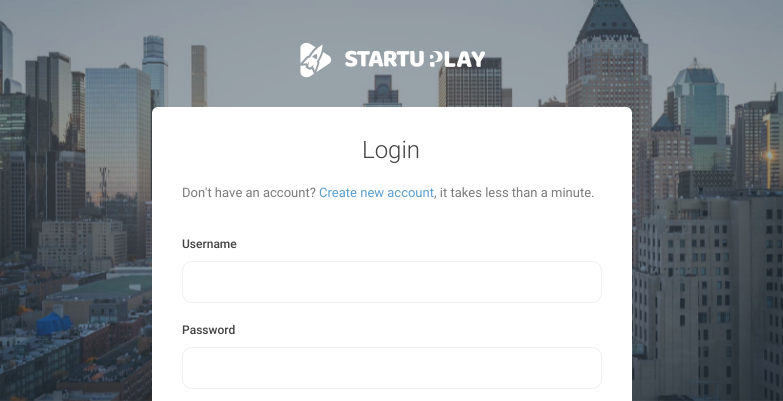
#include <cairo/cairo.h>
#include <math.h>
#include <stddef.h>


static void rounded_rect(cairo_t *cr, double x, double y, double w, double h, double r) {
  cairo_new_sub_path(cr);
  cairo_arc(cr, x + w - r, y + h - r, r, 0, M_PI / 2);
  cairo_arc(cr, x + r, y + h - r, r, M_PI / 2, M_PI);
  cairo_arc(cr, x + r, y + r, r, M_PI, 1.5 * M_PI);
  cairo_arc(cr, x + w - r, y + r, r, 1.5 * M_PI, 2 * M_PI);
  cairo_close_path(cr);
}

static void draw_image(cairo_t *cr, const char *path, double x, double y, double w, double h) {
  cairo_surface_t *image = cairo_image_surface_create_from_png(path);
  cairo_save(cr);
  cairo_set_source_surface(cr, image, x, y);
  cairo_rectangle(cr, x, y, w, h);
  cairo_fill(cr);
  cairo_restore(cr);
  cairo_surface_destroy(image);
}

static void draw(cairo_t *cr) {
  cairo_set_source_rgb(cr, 1, 1, 1);
  cairo_paint(cr);
  draw_image(cr, "images/1.png", 0, 0, 783, 401);
  draw_image(cr, "images/2.png", 300, 42, 185, 36);
  cairo_set_source_rgb(cr, 1, 1, 1);
  rounded_rect(cr, 152, 107, 480, 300, 6);
  cairo_fill(cr);
  rounded_rect(cr, 182.5, 261.5, 419, 41, 9.5);
  cairo_set_source_rgb(cr, 240 / 255.0, 240 / 255.0, 240 / 255.0);
  cairo_set_line_width(cr, 1);
  cairo_stroke(cr);
  rounded_rect(cr, 182.5, 347.5, 419, 41, 9.5);
  cairo_stroke(cr);
  cairo_select_font_face(cr, "Roboto Light", CAIRO_FONT_SLANT_NORMAL, CAIRO_FONT_WEIGHT_NORMAL);
  cairo_set_font_size(cr, 24);
  cairo_set_source_rgb(cr, 66 / 255.0, 66 / 255.0, 66 / 255.0);
  cairo_move_to(cr, 362, 158);
  cairo_show_text(cr, "Login");
  cairo_select_font_face(cr, "Roboto", CAIRO_FONT_SLANT_NORMAL, CAIRO_FONT_WEIGHT_NORMAL);
  cairo_set_font_size(cr, 13);
  cairo_set_source_rgb(cr, 123 / 255.0, 123 / 255.0, 123 / 255.0);
  cairo_move_to(cr, 182, 197);
  cairo_show_text(cr, "Don't have an account?");
  cairo_set_source_rgb(cr, 90 / 255.0, 157 / 255.0, 204 / 255.0);
  cairo_move_to(cr, 319, 197);
  cairo_show_text(cr, "Create new account");
  cairo_set_source_rgb(cr, 123 / 255.0, 123 / 255.0, 123 / 255.0);
  cairo_move_to(cr, 434, 197);
  cairo_show_text(cr, ", it takes less than a minute.");
  cairo_select_font_face(cr, "Roboto Medium", CAIRO_FONT_SLANT_NORMAL, CAIRO_FONT_WEIGHT_NORMAL);
  cairo_set_font_size(cr, 12);
  cairo_set_source_rgb(cr, 66 / 255.0, 66 / 255.0, 66 / 255.0);
  cairo_move_to(cr, 182, 248);
  cairo_show_text(cr, "Username");
  cairo_move_to(cr, 182, 334);
  cairo_show_text(cr, "Password");
}

int main(void) {
  cairo_surface_t *surface = cairo_image_surface_create(CAIRO_FORMAT_RGB24, 783, 401);
  cairo_t *cr = cairo_create(surface);
  cairo_font_options_t *options = cairo_font_options_create();
  cairo_font_options_set_hint_metrics(options, CAIRO_HINT_METRICS_OFF);
  cairo_font_options_set_hint_style(options, CAIRO_HINT_STYLE_NONE);
  cairo_set_font_options(cr, options);
  cairo_set_miter_limit(cr, 4);
  draw(cr);
  cairo_surface_write_to_png(surface, "out.png");
  cairo_font_options_destroy(options);
  cairo_destroy(cr);
  cairo_surface_destroy(surface);
  return 0;
}
